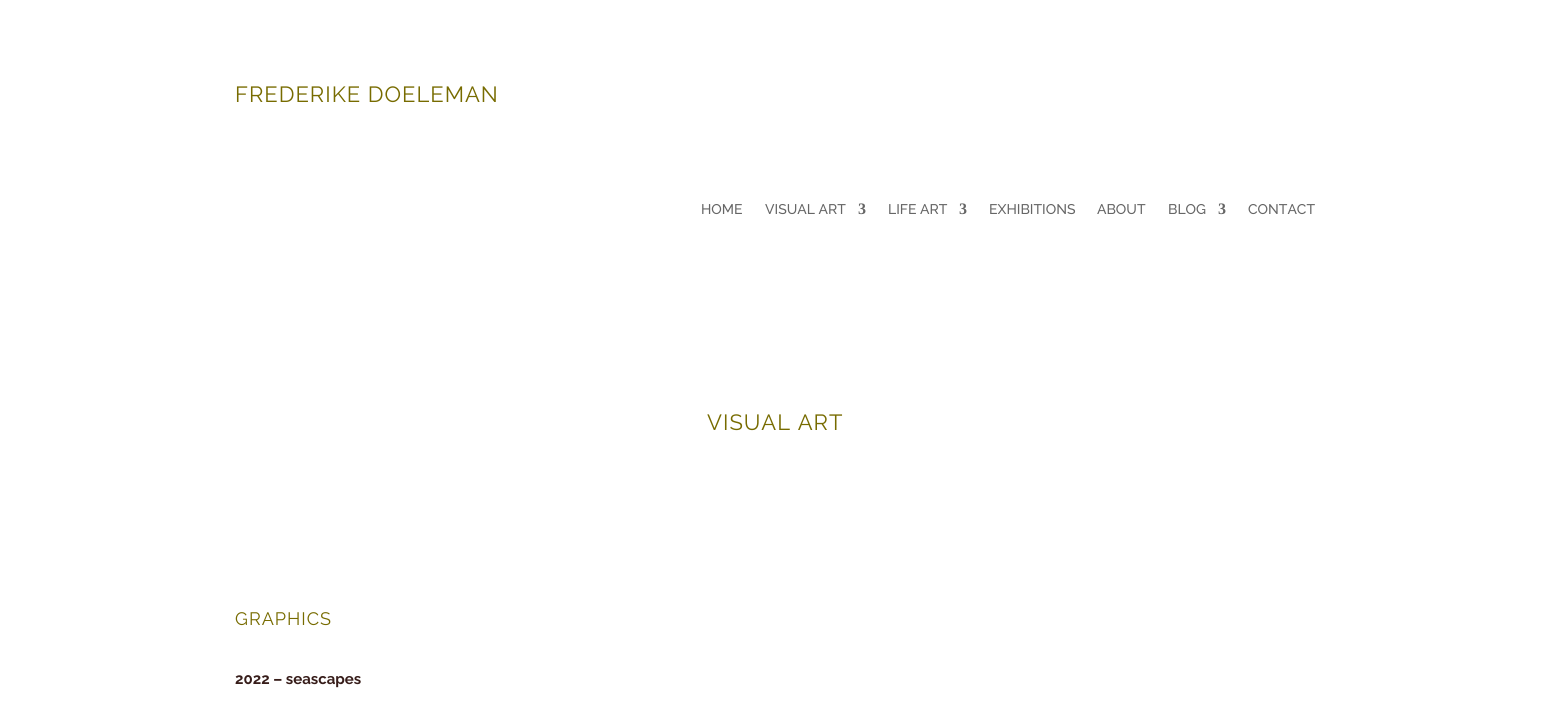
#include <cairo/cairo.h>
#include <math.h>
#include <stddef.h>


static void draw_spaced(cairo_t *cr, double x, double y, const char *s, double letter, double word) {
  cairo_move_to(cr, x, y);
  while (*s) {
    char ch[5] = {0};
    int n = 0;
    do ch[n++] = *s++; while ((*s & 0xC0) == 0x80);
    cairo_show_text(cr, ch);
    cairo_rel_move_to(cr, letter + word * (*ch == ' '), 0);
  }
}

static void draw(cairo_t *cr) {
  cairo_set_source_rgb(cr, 1, 1, 1);
  cairo_paint(cr);
  cairo_select_font_face(cr, "Raleway", CAIRO_FONT_SLANT_NORMAL, CAIRO_FONT_WEIGHT_NORMAL);
  cairo_set_font_size(cr, 22);
  cairo_set_source_rgb(cr, 119 / 255.0, 107 / 255.0, 0);
  draw_spaced(cr, 235, 102, "FREDERIKE DOELEMAN", 1, 0);
  cairo_select_font_face(cr, "Raleway Medium", CAIRO_FONT_SLANT_NORMAL, CAIRO_FONT_WEIGHT_NORMAL);
  cairo_set_font_size(cr, 14);
  cairo_set_source_rgb(cr, 102 / 255.0, 102 / 255.0, 102 / 255.0);
  cairo_move_to(cr, 701, 214);
  cairo_show_text(cr, "HOME");
  cairo_move_to(cr, 765, 214);
  cairo_show_text(cr, "VISUAL ART");
  cairo_select_font_face(cr, "Liberation Serif", CAIRO_FONT_SLANT_NORMAL, CAIRO_FONT_WEIGHT_BOLD);
  cairo_set_font_size(cr, 16);
  cairo_move_to(cr, 858, 214);
  cairo_show_text(cr, "3");
  cairo_select_font_face(cr, "Raleway Medium", CAIRO_FONT_SLANT_NORMAL, CAIRO_FONT_WEIGHT_NORMAL);
  cairo_set_font_size(cr, 14);
  cairo_move_to(cr, 888, 214);
  cairo_show_text(cr, "LIFE ART");
  cairo_select_font_face(cr, "Liberation Serif", CAIRO_FONT_SLANT_NORMAL, CAIRO_FONT_WEIGHT_BOLD);
  cairo_set_font_size(cr, 16);
  cairo_move_to(cr, 959, 214);
  cairo_show_text(cr, "3");
  cairo_select_font_face(cr, "Raleway Medium", CAIRO_FONT_SLANT_NORMAL, CAIRO_FONT_WEIGHT_NORMAL);
  cairo_set_font_size(cr, 14);
  cairo_move_to(cr, 989, 214);
  cairo_show_text(cr, "EXHIBITIONS");
  cairo_move_to(cr, 1097, 214);
  cairo_show_text(cr, "ABOUT");
  cairo_move_to(cr, 1168, 214);
  cairo_show_text(cr, "BLOG");
  cairo_select_font_face(cr, "Liberation Serif", CAIRO_FONT_SLANT_NORMAL, CAIRO_FONT_WEIGHT_BOLD);
  cairo_set_font_size(cr, 16);
  cairo_move_to(cr, 1218, 214);
  cairo_show_text(cr, "3");
  cairo_select_font_face(cr, "Raleway Medium", CAIRO_FONT_SLANT_NORMAL, CAIRO_FONT_WEIGHT_NORMAL);
  cairo_set_font_size(cr, 14);
  cairo_move_to(cr, 1248, 214);
  cairo_show_text(cr, "CONTACT");
  cairo_select_font_face(cr, "Raleway", CAIRO_FONT_SLANT_NORMAL, CAIRO_FONT_WEIGHT_NORMAL);
  cairo_set_font_size(cr, 22);
  cairo_set_source_rgb(cr, 119 / 255.0, 107 / 255.0, 0);
  draw_spaced(cr, 707, 430, "VISUAL ART", 1, 0);
  cairo_set_font_size(cr, 18);
  draw_spaced(cr, 235, 625, "GRAPHICS", 1, 0);
  cairo_select_font_face(cr, "Raleway", CAIRO_FONT_SLANT_NORMAL, CAIRO_FONT_WEIGHT_BOLD);
  cairo_set_font_size(cr, 15);
  cairo_set_source_rgb(cr, 55 / 255.0, 29 / 255.0, 26 / 255.0);
  cairo_move_to(cr, 235, 684);
  cairo_show_text(cr, "2022 – seascapes");
}

int main(void) {
  cairo_surface_t *surface = cairo_image_surface_create(CAIRO_FORMAT_RGB24, 1550, 716);
  cairo_t *cr = cairo_create(surface);
  cairo_font_options_t *options = cairo_font_options_create();
  cairo_font_options_set_hint_metrics(options, CAIRO_HINT_METRICS_OFF);
  cairo_font_options_set_hint_style(options, CAIRO_HINT_STYLE_NONE);
  cairo_set_font_options(cr, options);
  cairo_set_miter_limit(cr, 4);
  draw(cr);
  cairo_surface_write_to_png(surface, "out.png");
  cairo_font_options_destroy(options);
  cairo_destroy(cr);
  cairo_surface_destroy(surface);
  return 0;
}
